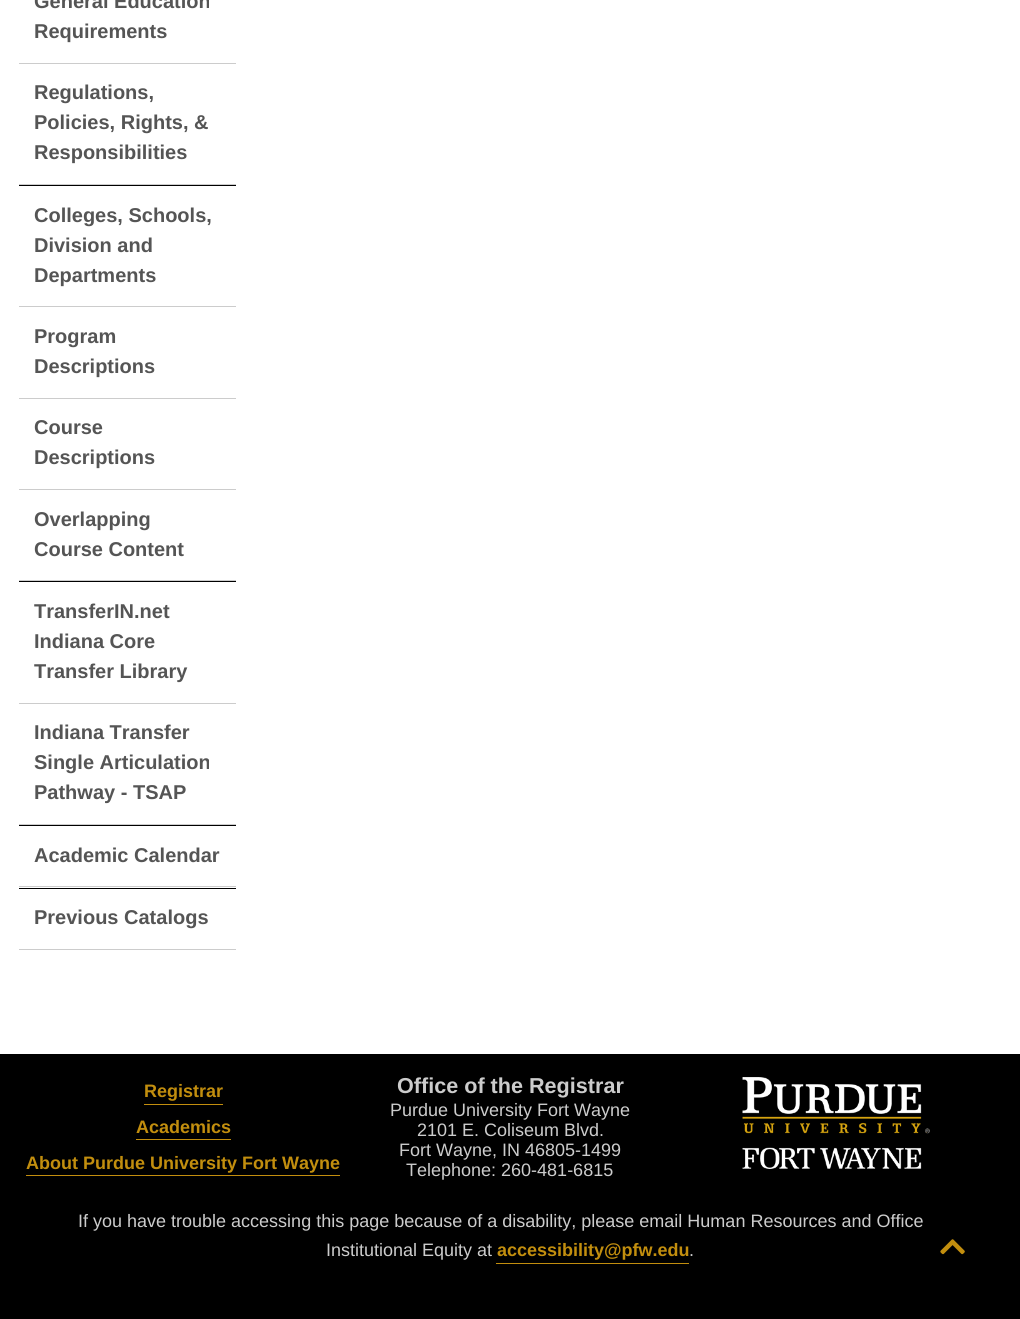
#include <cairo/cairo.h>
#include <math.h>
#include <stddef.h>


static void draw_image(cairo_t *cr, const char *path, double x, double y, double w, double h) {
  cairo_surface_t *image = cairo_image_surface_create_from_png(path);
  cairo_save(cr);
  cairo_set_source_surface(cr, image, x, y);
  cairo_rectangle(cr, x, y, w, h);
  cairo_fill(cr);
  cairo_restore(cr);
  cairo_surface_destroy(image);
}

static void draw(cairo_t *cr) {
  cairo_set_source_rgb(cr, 1, 1, 1);
  cairo_paint(cr);
  cairo_set_source_rgb(cr, 204 / 255.0, 204 / 255.0, 204 / 255.0);
  cairo_rectangle(cr, 19, 63, 217, 1);
  cairo_fill(cr);
  cairo_rectangle(cr, 19, 184, 217, 1);
  cairo_fill(cr);
  cairo_set_source_rgb(cr, 0, 0, 0);
  cairo_rectangle(cr, 19, 185, 217, 1);
  cairo_fill(cr);
  cairo_set_source_rgb(cr, 204 / 255.0, 204 / 255.0, 204 / 255.0);
  cairo_rectangle(cr, 19, 306, 217, 1);
  cairo_fill(cr);
  cairo_rectangle(cr, 19, 398, 217, 1);
  cairo_fill(cr);
  cairo_rectangle(cr, 19, 489, 217, 1);
  cairo_fill(cr);
  cairo_rectangle(cr, 19, 580, 217, 1);
  cairo_fill(cr);
  cairo_set_source_rgb(cr, 0, 0, 0);
  cairo_rectangle(cr, 19, 581, 217, 1);
  cairo_fill(cr);
  cairo_set_source_rgb(cr, 204 / 255.0, 204 / 255.0, 204 / 255.0);
  cairo_rectangle(cr, 19, 703, 217, 1);
  cairo_fill(cr);
  cairo_rectangle(cr, 19, 824, 217, 1);
  cairo_fill(cr);
  cairo_set_source_rgb(cr, 0, 0, 0);
  cairo_rectangle(cr, 19, 825, 217, 1);
  cairo_fill(cr);
  cairo_set_source_rgb(cr, 204 / 255.0, 204 / 255.0, 204 / 255.0);
  cairo_rectangle(cr, 19, 886, 217, 1);
  cairo_fill(cr);
  cairo_set_source_rgb(cr, 0, 0, 0);
  cairo_rectangle(cr, 19, 888, 217, 1);
  cairo_fill(cr);
  cairo_set_source_rgb(cr, 204 / 255.0, 204 / 255.0, 204 / 255.0);
  cairo_rectangle(cr, 19, 949, 217, 1);
  cairo_fill(cr);
  cairo_set_source_rgb(cr, 0, 0, 0);
  cairo_rectangle(cr, 0, 1054, 1020, 265);
  cairo_fill(cr);
  cairo_set_source_rgb(cr, 194 / 255.0, 142 / 255.0, 14 / 255.0);
  cairo_rectangle(cr, 144, 1104, 79, 1);
  cairo_fill(cr);
  cairo_rectangle(cr, 136, 1139, 95, 1);
  cairo_fill(cr);
  cairo_rectangle(cr, 26, 1175, 314, 1);
  cairo_fill(cr);
  draw_image(cr, "images/1.png", 742, 1077, 188, 92);
  cairo_rectangle(cr, 496, 1263, 193, 1);
  cairo_fill(cr);
  draw_image(cr, "images/2.png", 940, 1239, 25, 16);
  cairo_select_font_face(cr, "Liberation Sans", CAIRO_FONT_SLANT_NORMAL, CAIRO_FONT_WEIGHT_BOLD);
  cairo_set_font_size(cr, 20);
  cairo_set_source_rgb(cr, 85 / 255.0, 85 / 255.0, 85 / 255.0);
  cairo_move_to(cr, 34, 8);
  cairo_show_text(cr, "General Education");
  cairo_move_to(cr, 34, 38);
  cairo_show_text(cr, "Requirements");
  cairo_move_to(cr, 34, 99);
  cairo_show_text(cr, "Regulations,");
  cairo_move_to(cr, 34, 129);
  cairo_show_text(cr, "Policies, Rights, &");
  cairo_move_to(cr, 34, 159);
  cairo_show_text(cr, "Responsibilities");
  cairo_move_to(cr, 34, 222);
  cairo_show_text(cr, "Colleges, Schools,");
  cairo_move_to(cr, 34, 252);
  cairo_show_text(cr, "Division and");
  cairo_move_to(cr, 34, 282);
  cairo_show_text(cr, "Departments");
  cairo_move_to(cr, 34, 343);
  cairo_show_text(cr, "Program");
  cairo_move_to(cr, 34, 373);
  cairo_show_text(cr, "Descriptions");
  cairo_move_to(cr, 34, 434);
  cairo_show_text(cr, "Course");
  cairo_move_to(cr, 34, 464);
  cairo_show_text(cr, "Descriptions");
  cairo_move_to(cr, 34, 526);
  cairo_show_text(cr, "Overlapping");
  cairo_move_to(cr, 34, 556);
  cairo_show_text(cr, "Course Content");
  cairo_move_to(cr, 34, 618);
  cairo_show_text(cr, "TransferIN.net");
  cairo_move_to(cr, 34, 648);
  cairo_show_text(cr, "Indiana Core");
  cairo_move_to(cr, 34, 678);
  cairo_show_text(cr, "Transfer Library");
  cairo_move_to(cr, 34, 739);
  cairo_show_text(cr, "Indiana Transfer");
  cairo_move_to(cr, 34, 769);
  cairo_show_text(cr, "Single Articulation");
  cairo_move_to(cr, 34, 799);
  cairo_show_text(cr, "Pathway - TSAP");
  cairo_move_to(cr, 34, 862);
  cairo_show_text(cr, "Academic Calendar");
  cairo_move_to(cr, 34, 924);
  cairo_show_text(cr, "Previous Catalogs");
  cairo_set_font_size(cr, 18);
  cairo_set_source_rgb(cr, 194 / 255.0, 142 / 255.0, 14 / 255.0);
  cairo_move_to(cr, 144, 1097);
  cairo_show_text(cr, "Registrar");
  cairo_move_to(cr, 136, 1133);
  cairo_show_text(cr, "Academics");
  cairo_move_to(cr, 26, 1169);
  cairo_show_text(cr, "About Purdue University Fort Wayne");
  cairo_set_font_size(cr, 21.6);
  cairo_set_source_rgb(cr, 204 / 255.0, 204 / 255.0, 204 / 255.0);
  cairo_move_to(cr, 397, 1093);
  cairo_show_text(cr, "Office of the Registrar");
  cairo_select_font_face(cr, "Liberation Sans", CAIRO_FONT_SLANT_NORMAL, CAIRO_FONT_WEIGHT_NORMAL);
  cairo_set_font_size(cr, 18);
  cairo_move_to(cr, 390, 1116);
  cairo_show_text(cr, "Purdue University Fort Wayne");
  cairo_move_to(cr, 417, 1136);
  cairo_show_text(cr, "2101 E. Coliseum Blvd.");
  cairo_move_to(cr, 399, 1156);
  cairo_show_text(cr, "Fort Wayne, IN 46805-1499");
  cairo_move_to(cr, 406, 1176);
  cairo_show_text(cr, "Telephone: 260-481-6815");
  cairo_move_to(cr, 78, 1227);
  cairo_show_text(cr, "If you have trouble accessing this page because of a disability, please email Human Resources and Office");
  cairo_move_to(cr, 326, 1256);
  cairo_show_text(cr, "Institutional Equity at");
  cairo_select_font_face(cr, "Liberation Sans", CAIRO_FONT_SLANT_NORMAL, CAIRO_FONT_WEIGHT_BOLD);
  cairo_set_source_rgb(cr, 194 / 255.0, 142 / 255.0, 14 / 255.0);
  cairo_move_to(cr, 497, 1256);
  cairo_show_text(cr, "accessibility@pfw.edu");
  cairo_select_font_face(cr, "Liberation Sans", CAIRO_FONT_SLANT_NORMAL, CAIRO_FONT_WEIGHT_NORMAL);
  cairo_set_source_rgb(cr, 204 / 255.0, 204 / 255.0, 204 / 255.0);
  cairo_move_to(cr, 689, 1256);
  cairo_show_text(cr, ".");
}

int main(void) {
  cairo_surface_t *surface = cairo_image_surface_create(CAIRO_FORMAT_RGB24, 1020, 1319);
  cairo_t *cr = cairo_create(surface);
  cairo_font_options_t *options = cairo_font_options_create();
  cairo_font_options_set_hint_metrics(options, CAIRO_HINT_METRICS_OFF);
  cairo_font_options_set_hint_style(options, CAIRO_HINT_STYLE_NONE);
  cairo_set_font_options(cr, options);
  cairo_set_miter_limit(cr, 4);
  draw(cr);
  cairo_surface_write_to_png(surface, "out.png");
  cairo_font_options_destroy(options);
  cairo_destroy(cr);
  cairo_surface_destroy(surface);
  return 0;
}
